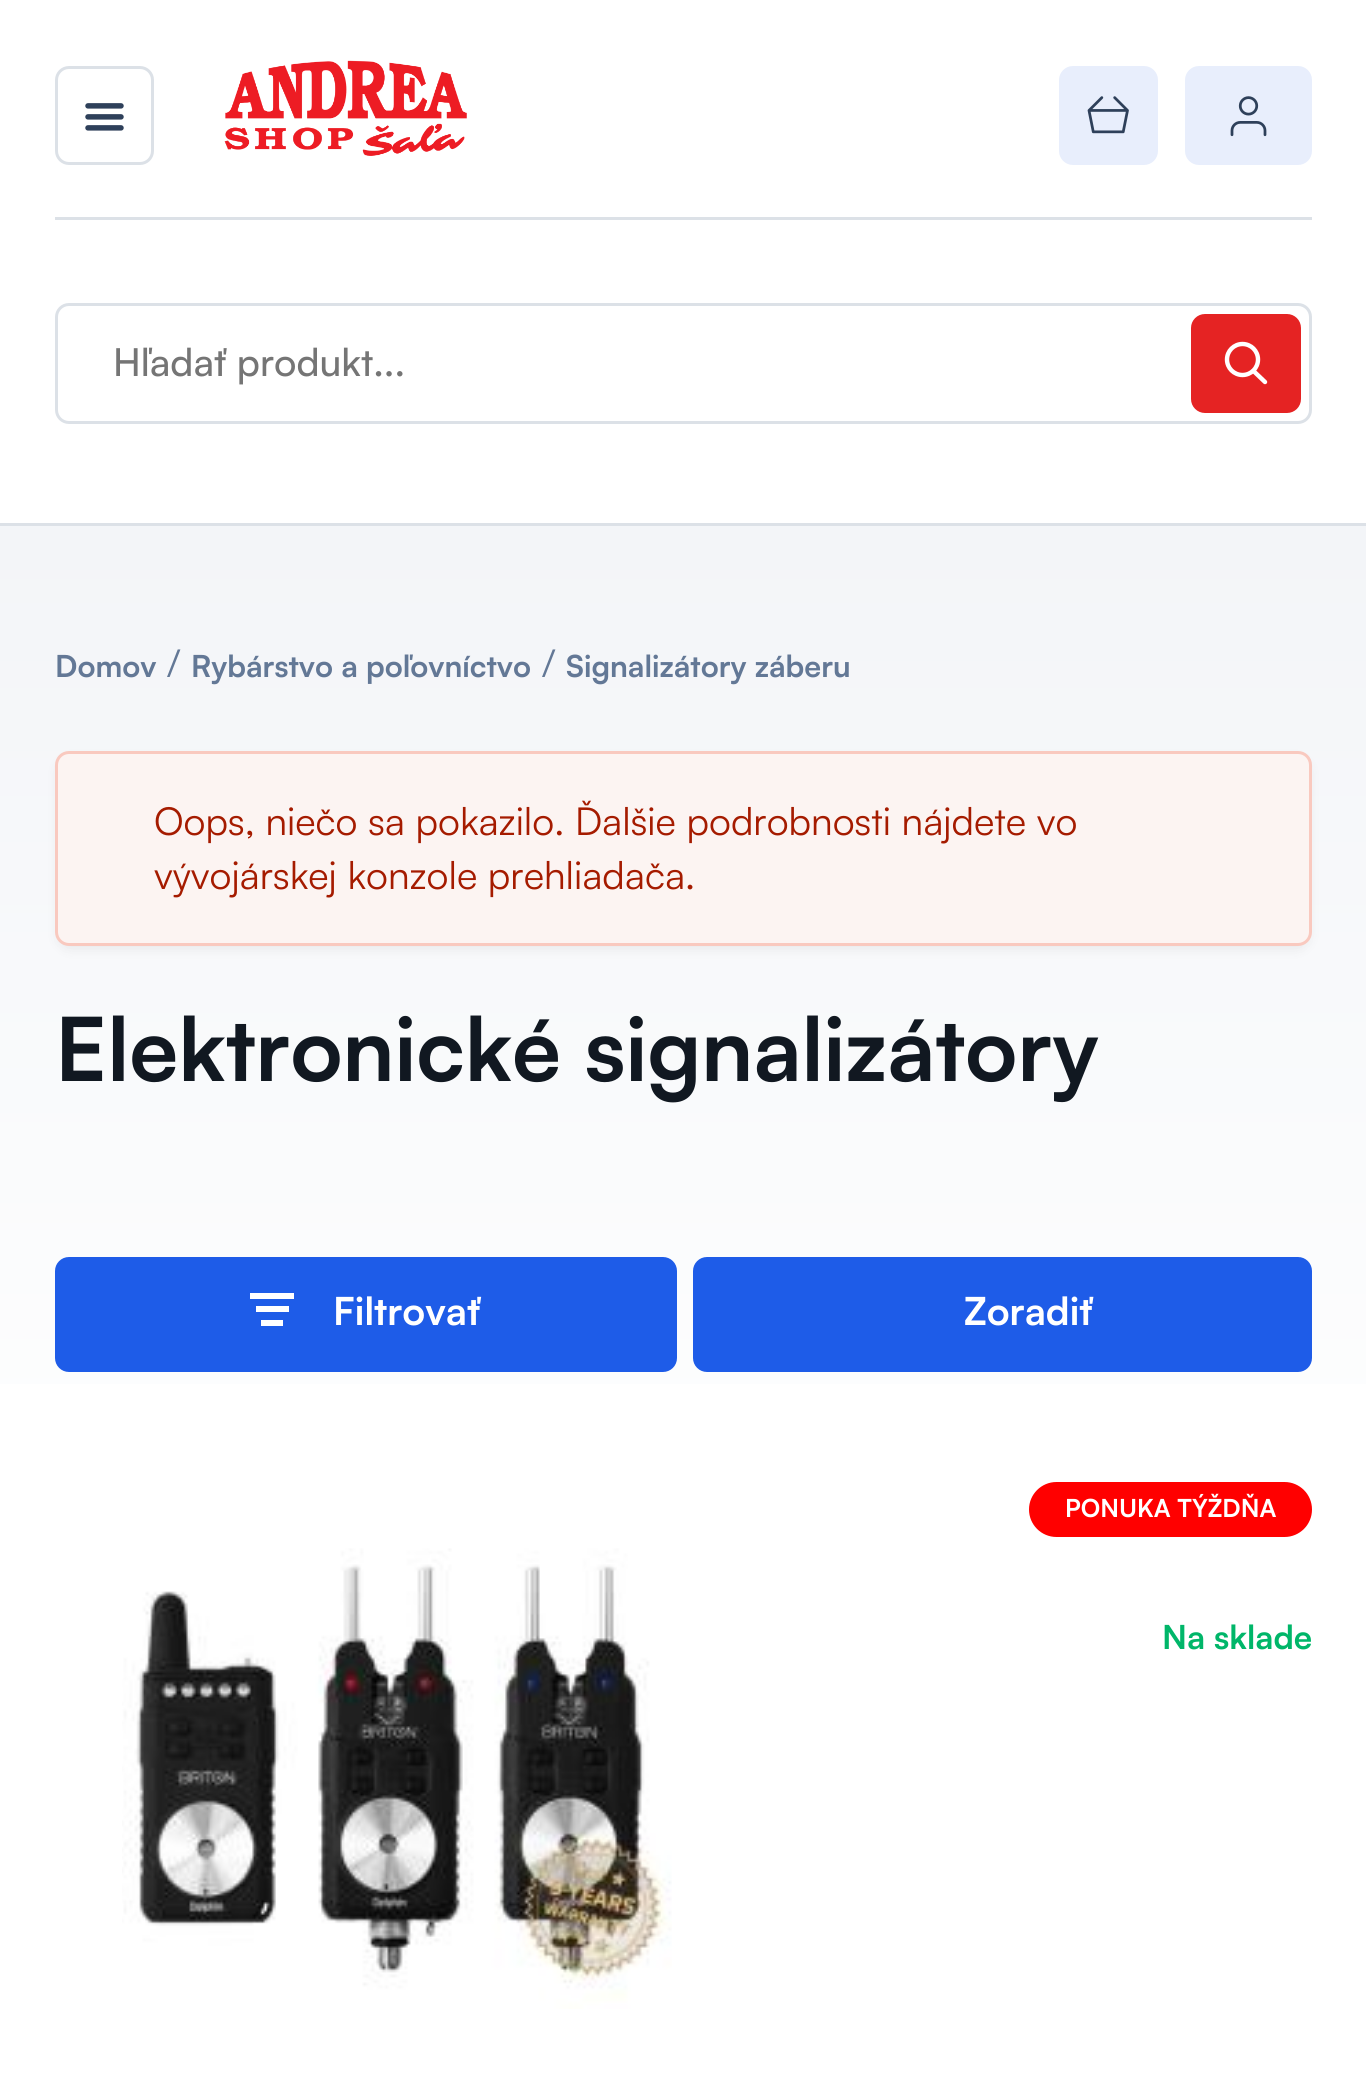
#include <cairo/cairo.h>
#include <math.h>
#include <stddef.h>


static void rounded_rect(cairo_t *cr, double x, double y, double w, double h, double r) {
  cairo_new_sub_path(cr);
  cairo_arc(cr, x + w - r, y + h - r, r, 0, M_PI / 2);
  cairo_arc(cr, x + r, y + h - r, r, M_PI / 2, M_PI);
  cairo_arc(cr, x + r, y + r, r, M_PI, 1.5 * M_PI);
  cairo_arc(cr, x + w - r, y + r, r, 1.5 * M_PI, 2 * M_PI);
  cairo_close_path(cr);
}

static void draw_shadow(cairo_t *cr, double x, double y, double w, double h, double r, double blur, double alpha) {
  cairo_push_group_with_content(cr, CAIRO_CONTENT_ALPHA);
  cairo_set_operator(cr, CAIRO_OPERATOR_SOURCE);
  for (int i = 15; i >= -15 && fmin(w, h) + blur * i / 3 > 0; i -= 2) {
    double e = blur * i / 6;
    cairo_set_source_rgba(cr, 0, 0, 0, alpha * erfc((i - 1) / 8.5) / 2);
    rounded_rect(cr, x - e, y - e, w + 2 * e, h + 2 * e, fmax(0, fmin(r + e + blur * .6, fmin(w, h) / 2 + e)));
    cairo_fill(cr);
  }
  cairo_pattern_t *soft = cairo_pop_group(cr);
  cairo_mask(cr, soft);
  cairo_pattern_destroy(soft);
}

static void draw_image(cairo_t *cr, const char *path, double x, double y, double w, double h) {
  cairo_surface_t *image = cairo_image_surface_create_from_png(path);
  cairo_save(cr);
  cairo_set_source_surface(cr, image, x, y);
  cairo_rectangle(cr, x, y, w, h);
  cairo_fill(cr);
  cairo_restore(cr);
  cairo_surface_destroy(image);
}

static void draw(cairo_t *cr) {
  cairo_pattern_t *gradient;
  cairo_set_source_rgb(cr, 1, 1, 1);
  cairo_paint(cr);
  cairo_set_source_rgb(cr, 220 / 255.0, 225 / 255.0, 231 / 255.0);
  cairo_rectangle(cr, 0, 523, 1366, 3);
  cairo_fill(cr);
  rounded_rect(cr, 56.5, 67.5, 96, 96, 12.5);
  cairo_set_line_width(cr, 3);
  cairo_stroke(cr);
  draw_image(cr, "images/1.png", 85, 103, 39, 28);
  draw_image(cr, "images/2.png", 224, 60, 243, 96);
  cairo_set_source_rgb(cr, 232 / 255.0, 238 / 255.0, 252 / 255.0);
  rounded_rect(cr, 1059, 66, 99, 99, 14);
  cairo_fill(cr);
  draw_image(cr, "images/3.png", 1087, 96, 42, 38);
  rounded_rect(cr, 1185, 66, 127, 99, 14);
  cairo_fill(cr);
  draw_image(cr, "images/4.png", 1230, 96, 37, 41);
  cairo_set_source_rgb(cr, 220 / 255.0, 225 / 255.0, 231 / 255.0);
  cairo_rectangle(cr, 55, 217, 1257, 3);
  cairo_fill(cr);
  rounded_rect(cr, 56.5, 304.5, 1254, 118, 12.5);
  cairo_stroke(cr);
  cairo_set_source_rgb(cr, 229 / 255.0, 35 / 255.0, 35 / 255.0);
  rounded_rect(cr, 1191, 314, 110, 99, 14);
  cairo_fill(cr);
  cairo_arc(cr, 1242.5, 359.5, 15.5, 0, 2 * M_PI);
  cairo_set_source_rgb(cr, 1, 1, 1);
  cairo_set_line_width(cr, 4.4);
  cairo_stroke(cr);
  cairo_new_path(cr);
  cairo_move_to(cr, 1265, 382);
  cairo_line_to(cr, 1253.5, 371);
  cairo_set_line_cap(cr, CAIRO_LINE_CAP_ROUND);
  cairo_set_line_join(cr, CAIRO_LINE_JOIN_ROUND);
  cairo_stroke(cr);
  gradient = cairo_pattern_create_linear(683, 525, 683, 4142);
  cairo_pattern_add_color_stop_rgba(gradient, 0, 243 / 255.0, 245 / 255.0, 248 / 255.0, 1);
  cairo_pattern_add_color_stop_rgba(gradient, 0.3, 1, 1, 1, 1);
  cairo_pattern_add_color_stop_rgba(gradient, 1, 1, 1, 1, 1);
  cairo_set_source(cr, gradient);
  cairo_pattern_destroy(gradient);
  cairo_rectangle(cr, 0, 526, 1366, 858);
  cairo_fill(cr);
  cairo_set_source_rgb(cr, 0, 0, 0);
  draw_shadow(cr, 61, 762, 1245, 184, 8, 7, 0.1);
  cairo_set_source_rgb(cr, 252 / 255.0, 244 / 255.0, 242 / 255.0);
  rounded_rect(cr, 56.5, 752.5, 1254, 192, 12.5);
  cairo_fill_preserve(cr);
  cairo_set_source_rgb(cr, 249 / 255.0, 201 / 255.0, 191 / 255.0);
  cairo_set_line_width(cr, 3);
  cairo_set_line_cap(cr, CAIRO_LINE_CAP_BUTT);
  cairo_set_line_join(cr, CAIRO_LINE_JOIN_MITER);
  cairo_stroke(cr);
  cairo_set_source_rgb(cr, 30 / 255.0, 92 / 255.0, 232 / 255.0);
  rounded_rect(cr, 55, 1257, 622, 115, 14);
  cairo_fill(cr);
  cairo_set_source_rgb(cr, 1, 1, 1);
  cairo_rectangle(cr, 256, 1306, 33, 6);
  cairo_fill(cr);
  cairo_rectangle(cr, 250, 1293, 44, 6);
  cairo_fill(cr);
  cairo_rectangle(cr, 261, 1320, 22, 6);
  cairo_fill(cr);
  cairo_set_source_rgb(cr, 30 / 255.0, 92 / 255.0, 232 / 255.0);
  rounded_rect(cr, 693, 1257, 619, 115, 14);
  cairo_fill(cr);
  cairo_set_source_rgb(cr, 1, 0, 0);
  rounded_rect(cr, 1029, 1482, 283, 55, 27.5);
  cairo_fill(cr);
  draw_image(cr, "images/5.png", 122, 1548, 550, 461);
  cairo_select_font_face(cr, "Satoshi Medium", CAIRO_FONT_SLANT_NORMAL, CAIRO_FONT_WEIGHT_NORMAL);
  cairo_set_font_size(cr, 38.5);
  cairo_set_source_rgb(cr, 117 / 255.0, 117 / 255.0, 117 / 255.0);
  cairo_move_to(cr, 113, 376);
  cairo_show_text(cr, "Hľadať produkt...");
  cairo_select_font_face(cr, "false", CAIRO_FONT_SLANT_NORMAL, CAIRO_FONT_WEIGHT_BOLD);
  cairo_set_font_size(cr, 30.25);
  cairo_set_source_rgb(cr, 99 / 255.0, 120 / 255.0, 150 / 255.0);
  cairo_move_to(cr, 55, 677);
  cairo_show_text(cr, "Domov");
  cairo_select_font_face(cr, "false", CAIRO_FONT_SLANT_NORMAL, CAIRO_FONT_WEIGHT_NORMAL);
  cairo_set_font_size(cr, 38.5);
  cairo_move_to(cr, 167, 677);
  cairo_show_text(cr, "/");
  cairo_select_font_face(cr, "false", CAIRO_FONT_SLANT_NORMAL, CAIRO_FONT_WEIGHT_BOLD);
  cairo_set_font_size(cr, 30.25);
  cairo_move_to(cr, 191, 677);
  cairo_show_text(cr, "Rybárstvo a poľovníctvo");
  cairo_select_font_face(cr, "false", CAIRO_FONT_SLANT_NORMAL, CAIRO_FONT_WEIGHT_NORMAL);
  cairo_set_font_size(cr, 38.5);
  cairo_move_to(cr, 542, 677);
  cairo_show_text(cr, "/");
  cairo_select_font_face(cr, "false", CAIRO_FONT_SLANT_NORMAL, CAIRO_FONT_WEIGHT_BOLD);
  cairo_set_font_size(cr, 30.25);
  cairo_move_to(cr, 566, 677);
  cairo_show_text(cr, "Signalizátory záberu");
  cairo_select_font_face(cr, "false", CAIRO_FONT_SLANT_NORMAL, CAIRO_FONT_WEIGHT_NORMAL);
  cairo_set_font_size(cr, 38.5);
  cairo_set_source_rgb(cr, 165 / 255.0, 27 / 255.0, 0);
  cairo_move_to(cr, 154, 835);
  cairo_show_text(cr, "Oops, niečo sa pokazilo. Ďalšie podrobnosti nájdete vo");
  cairo_move_to(cr, 154, 889);
  cairo_show_text(cr, "vývojárskej konzole prehliadača.");
  cairo_select_font_face(cr, "false", CAIRO_FONT_SLANT_NORMAL, CAIRO_FONT_WEIGHT_BOLD);
  cairo_set_font_size(cr, 88);
  cairo_set_source_rgb(cr, 17 / 255.0, 24 / 255.0, 33 / 255.0);
  cairo_move_to(cr, 55, 1081);
  cairo_show_text(cr, "Elektronické signalizátory");
  cairo_set_font_size(cr, 38.5);
  cairo_set_source_rgb(cr, 1, 1, 1);
  cairo_move_to(cr, 333, 1325);
  cairo_show_text(cr, "Filtrovať");
  cairo_move_to(cr, 964, 1325);
  cairo_show_text(cr, "Zoradiť");
  cairo_set_font_size(cr, 24.75);
  cairo_move_to(cr, 1065, 1517);
  cairo_show_text(cr, "PONUKA TÝŽDŇA");
  cairo_set_font_size(cr, 33);
  cairo_set_source_rgb(cr, 0, 182 / 255.0, 105 / 255.0);
  cairo_move_to(cr, 1162, 1649);
  cairo_show_text(cr, "Na sklade");
}

int main(void) {
  cairo_surface_t *surface = cairo_image_surface_create(CAIRO_FORMAT_RGB24, 1366, 2074);
  cairo_t *cr = cairo_create(surface);
  cairo_font_options_t *options = cairo_font_options_create();
  cairo_font_options_set_hint_metrics(options, CAIRO_HINT_METRICS_OFF);
  cairo_font_options_set_hint_style(options, CAIRO_HINT_STYLE_NONE);
  cairo_set_font_options(cr, options);
  cairo_set_miter_limit(cr, 4);
  draw(cr);
  cairo_surface_write_to_png(surface, "out.png");
  cairo_font_options_destroy(options);
  cairo_destroy(cr);
  cairo_surface_destroy(surface);
  return 0;
}
